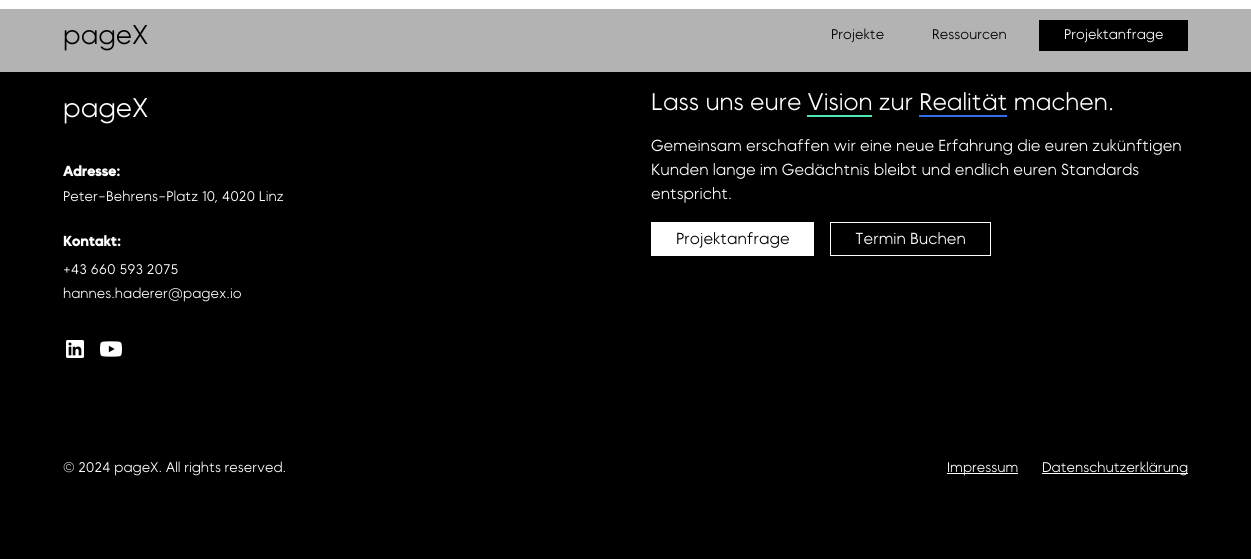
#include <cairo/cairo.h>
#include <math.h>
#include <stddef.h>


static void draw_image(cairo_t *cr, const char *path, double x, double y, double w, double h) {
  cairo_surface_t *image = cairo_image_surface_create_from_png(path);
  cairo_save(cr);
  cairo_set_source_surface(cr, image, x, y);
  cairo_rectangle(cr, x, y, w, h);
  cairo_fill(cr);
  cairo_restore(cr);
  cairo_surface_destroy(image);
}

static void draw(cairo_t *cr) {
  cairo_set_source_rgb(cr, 1, 1, 1);
  cairo_paint(cr);
  cairo_set_source_rgb(cr, 179 / 255.0, 179 / 255.0, 179 / 255.0);
  cairo_rectangle(cr, 0, 9, 1251, 63);
  cairo_fill(cr);
  cairo_set_source_rgb(cr, 0, 0, 0);
  cairo_rectangle(cr, 1039, 20, 149, 31);
  cairo_fill(cr);
  cairo_rectangle(cr, 0, 72, 1251, 487);
  cairo_fill(cr);
  draw_image(cr, "images/1.png", 66, 340, 18, 18);
  draw_image(cr, "images/2.png", 100, 341, 22, 16);
  cairo_set_source_rgb(cr, 76 / 255.0, 232 / 255.0, 185 / 255.0);
  cairo_rectangle(cr, 807, 115, 65, 2);
  cairo_fill(cr);
  cairo_set_source_rgb(cr, 51 / 255.0, 108 / 255.0, 236 / 255.0);
  cairo_rectangle(cr, 919, 115, 88, 2);
  cairo_fill(cr);
  cairo_set_source_rgb(cr, 1, 1, 1);
  cairo_rectangle(cr, 651, 222, 163, 34);
  cairo_fill(cr);
  cairo_rectangle(cr, 830.5, 222.5, 160, 33);
  cairo_set_line_width(cr, 1);
  cairo_stroke(cr);
  cairo_rectangle(cr, 947, 473, 71, 1);
  cairo_fill(cr);
  cairo_rectangle(cr, 1042, 473, 146, 1);
  cairo_fill(cr);
  cairo_select_font_face(cr, "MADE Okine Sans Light", CAIRO_FONT_SLANT_NORMAL, CAIRO_FONT_WEIGHT_NORMAL);
  cairo_set_font_size(cr, 27);
  cairo_set_source_rgb(cr, 0, 0, 0);
  cairo_move_to(cr, 63, 44);
  cairo_show_text(cr, "pageX");
  cairo_set_font_size(cr, 14);
  cairo_move_to(cr, 831, 39);
  cairo_show_text(cr, "Projekte");
  cairo_move_to(cr, 932, 39);
  cairo_show_text(cr, "Ressourcen");
  cairo_set_source_rgb(cr, 1, 1, 1);
  cairo_move_to(cr, 1064, 39);
  cairo_show_text(cr, "Projektanfrage");
  cairo_set_font_size(cr, 27);
  cairo_move_to(cr, 63, 117);
  cairo_show_text(cr, "pageX");
  cairo_select_font_face(cr, "MADE Okine Sans", CAIRO_FONT_SLANT_NORMAL, CAIRO_FONT_WEIGHT_BOLD);
  cairo_set_font_size(cr, 14);
  cairo_move_to(cr, 63, 176);
  cairo_show_text(cr, "Adresse:");
  cairo_select_font_face(cr, "MADE Okine Sans Light", CAIRO_FONT_SLANT_NORMAL, CAIRO_FONT_WEIGHT_NORMAL);
  cairo_move_to(cr, 63, 201);
  cairo_show_text(cr, "Peter-Behrens-Platz 10, 4020 Linz");
  cairo_select_font_face(cr, "MADE Okine Sans", CAIRO_FONT_SLANT_NORMAL, CAIRO_FONT_WEIGHT_BOLD);
  cairo_move_to(cr, 63, 246);
  cairo_show_text(cr, "Kontakt:");
  cairo_select_font_face(cr, "MADE Okine Sans Light", CAIRO_FONT_SLANT_NORMAL, CAIRO_FONT_WEIGHT_NORMAL);
  cairo_move_to(cr, 63, 274);
  cairo_show_text(cr, "+43 660 593 2075");
  cairo_move_to(cr, 63, 298);
  cairo_show_text(cr, "hannes.haderer@pagex.io");
  cairo_set_font_size(cr, 24);
  cairo_move_to(cr, 651, 110);
  cairo_show_text(cr, "Lass uns eure Vision zur Realität machen.");
  cairo_set_font_size(cr, 16);
  cairo_move_to(cr, 651, 151);
  cairo_show_text(cr, "Gemeinsam erschaffen wir eine neue Erfahrung die euren zukünftigen");
  cairo_move_to(cr, 651, 175);
  cairo_show_text(cr, "Kunden lange im Gedächtnis bleibt und endlich euren Standards");
  cairo_move_to(cr, 651, 199);
  cairo_show_text(cr, "entspricht.");
  cairo_set_source_rgb(cr, 0, 0, 0);
  cairo_move_to(cr, 676, 244);
  cairo_show_text(cr, "Projektanfrage");
  cairo_set_source_rgb(cr, 1, 1, 1);
  cairo_move_to(cr, 855, 244);
  cairo_show_text(cr, "Termin Buchen");
  cairo_set_font_size(cr, 14);
  cairo_move_to(cr, 63, 472);
  cairo_show_text(cr, "© 2024 pageX. All rights reserved.");
  cairo_move_to(cr, 947, 472);
  cairo_show_text(cr, "Impressum");
  cairo_move_to(cr, 1042, 472);
  cairo_show_text(cr, "Datenschutzerklärung");
}

int main(void) {
  cairo_surface_t *surface = cairo_image_surface_create(CAIRO_FORMAT_RGB24, 1251, 559);
  cairo_t *cr = cairo_create(surface);
  cairo_font_options_t *options = cairo_font_options_create();
  cairo_font_options_set_hint_metrics(options, CAIRO_HINT_METRICS_OFF);
  cairo_font_options_set_hint_style(options, CAIRO_HINT_STYLE_NONE);
  cairo_set_font_options(cr, options);
  cairo_set_miter_limit(cr, 4);
  draw(cr);
  cairo_surface_write_to_png(surface, "out.png");
  cairo_font_options_destroy(options);
  cairo_destroy(cr);
  cairo_surface_destroy(surface);
  return 0;
}
